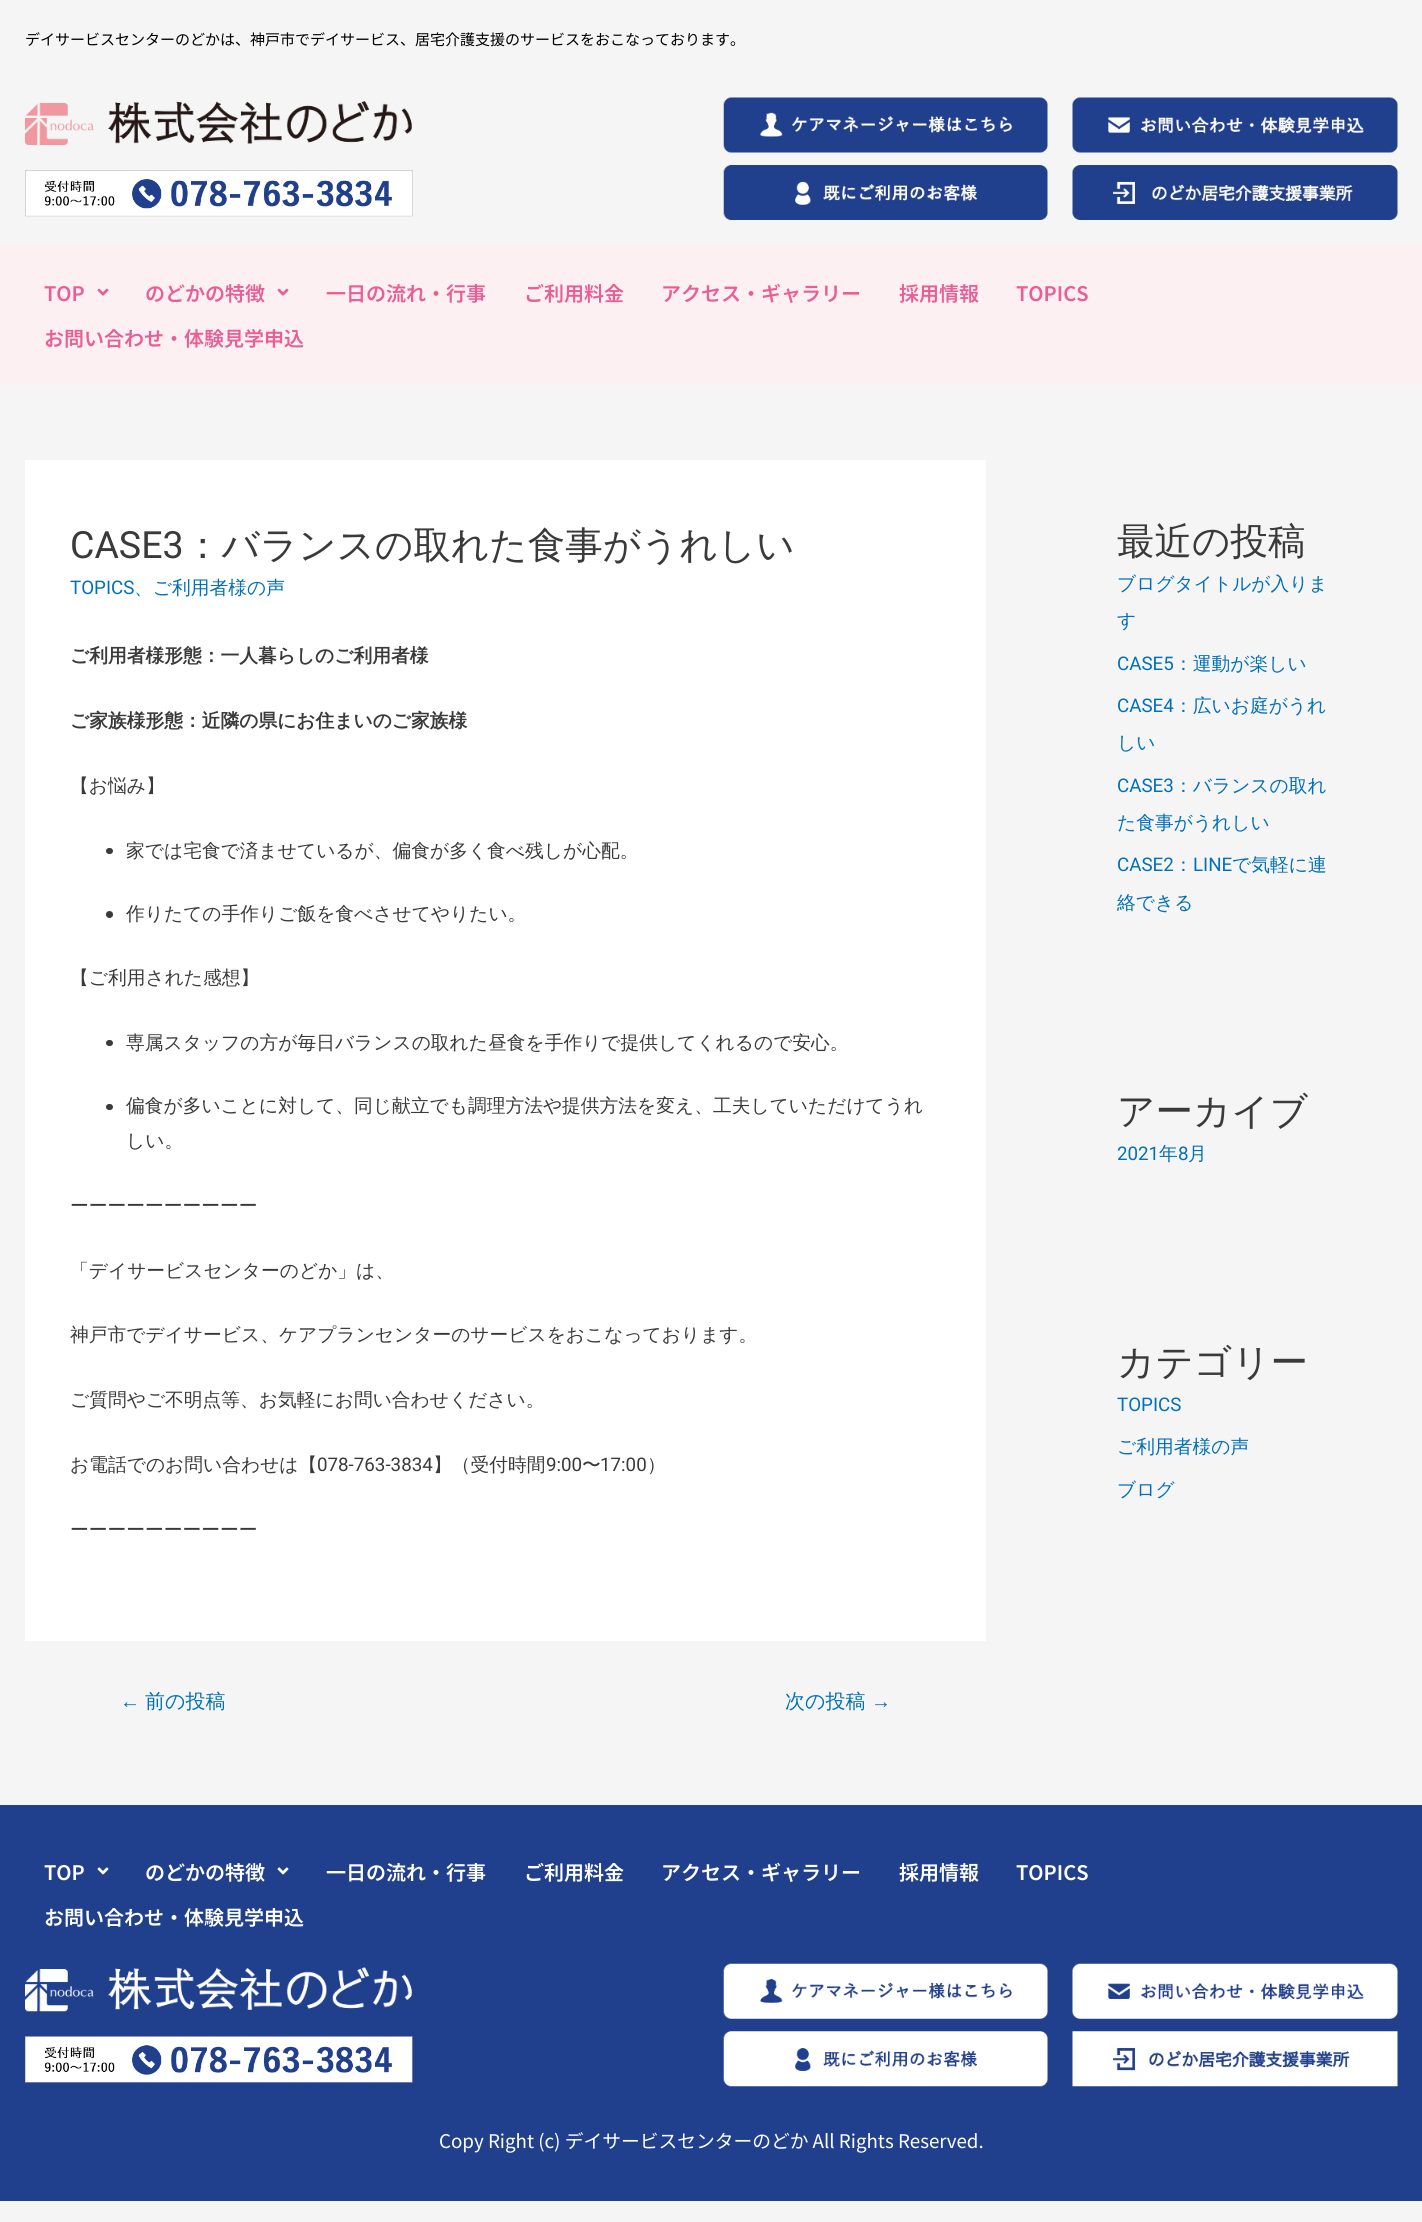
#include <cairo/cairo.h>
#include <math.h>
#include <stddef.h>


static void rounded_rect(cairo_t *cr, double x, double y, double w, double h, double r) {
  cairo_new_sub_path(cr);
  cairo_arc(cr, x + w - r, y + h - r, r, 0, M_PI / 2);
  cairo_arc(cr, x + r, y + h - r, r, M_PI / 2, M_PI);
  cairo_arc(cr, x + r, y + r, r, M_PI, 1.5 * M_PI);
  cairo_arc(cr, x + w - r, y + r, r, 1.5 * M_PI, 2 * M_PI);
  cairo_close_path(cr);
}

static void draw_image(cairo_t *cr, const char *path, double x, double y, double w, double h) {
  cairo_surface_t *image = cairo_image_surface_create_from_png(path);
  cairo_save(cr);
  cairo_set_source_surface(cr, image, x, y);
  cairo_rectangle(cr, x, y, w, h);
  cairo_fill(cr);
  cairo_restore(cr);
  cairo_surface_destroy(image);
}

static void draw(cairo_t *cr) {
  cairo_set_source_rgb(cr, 245 / 255.0, 245 / 255.0, 245 / 255.0);
  cairo_paint(cr);
  draw_image(cr, "images/1.png", 25, 101, 387, 44);
  draw_image(cr, "images/2.png", 25, 170, 388, 47);
  draw_image(cr, "images/3.png", 723, 97, 325, 56);
  draw_image(cr, "images/4.png", 723, 165, 325, 55);
  draw_image(cr, "images/5.png", 1072, 97, 326, 56);
  draw_image(cr, "images/6.png", 1072, 165, 326, 55);
  cairo_set_source_rgb(cr, 253 / 255.0, 240 / 255.0, 243 / 255.0);
  cairo_rectangle(cr, 0, 245, 1422, 140);
  cairo_fill(cr);
  draw_image(cr, "images/7.png", 97, 288, 12, 8);
  draw_image(cr, "images/7.png", 277, 288, 12, 8);
  cairo_set_source_rgb(cr, 1, 1, 1);
  cairo_rectangle(cr, 25, 460, 961, 1181);
  cairo_fill(cr);
  cairo_set_source_rgb(cr, 58 / 255.0, 58 / 255.0, 58 / 255.0);
  rounded_rect(cr, 106, 848, 7, 6, 3);
  cairo_fill(cr);
  cairo_arc(cr, 109.5, 914.5, 3.5, 0, 2 * M_PI);
  cairo_fill(cr);
  rounded_rect(cr, 106, 1040, 7, 6, 3);
  cairo_fill(cr);
  rounded_rect(cr, 106, 1104, 7, 6, 3);
  cairo_fill(cr);
  cairo_set_source_rgb(cr, 32 / 255.0, 64 / 255.0, 142 / 255.0);
  cairo_rectangle(cr, 0, 1805, 1422, 396);
  cairo_fill(cr);
  draw_image(cr, "images/8.png", 97, 1867, 12, 8);
  draw_image(cr, "images/8.png", 277, 1867, 12, 8);
  draw_image(cr, "images/9.png", 25, 1967, 387, 45);
  draw_image(cr, "images/10.png", 25, 2036, 388, 47);
  draw_image(cr, "images/11.png", 723, 1963, 325, 56);
  draw_image(cr, "images/12.png", 723, 2031, 325, 56);
  draw_image(cr, "images/13.png", 1072, 1963, 326, 56);
  draw_image(cr, "images/14.png", 1072, 2031, 326, 56);
  cairo_select_font_face(cr, "Noto Sans JP", CAIRO_FONT_SLANT_NORMAL, CAIRO_FONT_WEIGHT_NORMAL);
  cairo_set_font_size(cr, 15);
  cairo_set_source_rgb(cr, 0, 0, 0);
  cairo_move_to(cr, 25, 45);
  cairo_show_text(cr, "デイサービスセンターのどかは、神戸市でデイサービス、居宅介護支援のサービスをおこなっております。");
  cairo_select_font_face(cr, "Noto Sans JP SemiBold", CAIRO_FONT_SLANT_NORMAL, CAIRO_FONT_WEIGHT_NORMAL);
  cairo_set_font_size(cr, 20);
  cairo_set_source_rgb(cr, 233 / 255.0, 94 / 255.0, 149 / 255.0);
  cairo_move_to(cr, 44, 301);
  cairo_show_text(cr, "TOP");
  cairo_move_to(cr, 145, 301);
  cairo_show_text(cr, "のどかの特徴");
  cairo_move_to(cr, 326, 301);
  cairo_show_text(cr, "一日の流れ・行事");
  cairo_move_to(cr, 524, 301);
  cairo_show_text(cr, "ご利用料金");
  cairo_move_to(cr, 661, 301);
  cairo_show_text(cr, "アクセス・ギャラリー");
  cairo_move_to(cr, 899, 301);
  cairo_show_text(cr, "採用情報");
  cairo_move_to(cr, 1016, 301);
  cairo_show_text(cr, "TOPICS");
  cairo_move_to(cr, 44, 346);
  cairo_show_text(cr, "お問い合わせ・体験見学申込");
  cairo_select_font_face(cr, "Roboto", CAIRO_FONT_SLANT_NORMAL, CAIRO_FONT_WEIGHT_NORMAL);
  cairo_set_font_size(cr, 37.5);
  cairo_set_source_rgb(cr, 58 / 255.0, 58 / 255.0, 58 / 255.0);
  cairo_move_to(cr, 70, 558);
  cairo_show_text(cr, "CASE3");
  cairo_select_font_face(cr, "WenQuanYi Zen Hei Medium", CAIRO_FONT_SLANT_NORMAL, CAIRO_FONT_WEIGHT_NORMAL);
  cairo_move_to(cr, 184, 558);
  cairo_show_text(cr, "：バランスの取れた食事がうれしい");
  cairo_select_font_face(cr, "Roboto", CAIRO_FONT_SLANT_NORMAL, CAIRO_FONT_WEIGHT_NORMAL);
  cairo_set_font_size(cr, 18.75);
  cairo_set_source_rgb(cr, 1 / 255.0, 112 / 255.0, 185 / 255.0);
  cairo_move_to(cr, 70, 594);
  cairo_show_text(cr, "TOPICS");
  cairo_select_font_face(cr, "WenQuanYi Zen Hei Medium", CAIRO_FONT_SLANT_NORMAL, CAIRO_FONT_WEIGHT_NORMAL);
  cairo_move_to(cr, 134, 594);
  cairo_show_text(cr, "、ご利用者様の声");
  cairo_select_font_face(cr, "WenQuanYi Zen Hei", CAIRO_FONT_SLANT_NORMAL, CAIRO_FONT_WEIGHT_BOLD);
  cairo_set_source_rgb(cr, 58 / 255.0, 58 / 255.0, 58 / 255.0);
  cairo_move_to(cr, 70, 662);
  cairo_show_text(cr, "ご利用者様形態：一人暮らしのご利用者様");
  cairo_move_to(cr, 70, 727);
  cairo_show_text(cr, "ご家族様形態：近隣の県にお住まいのご家族様");
  cairo_select_font_face(cr, "WenQuanYi Zen Hei Medium", CAIRO_FONT_SLANT_NORMAL, CAIRO_FONT_WEIGHT_NORMAL);
  cairo_move_to(cr, 70, 792);
  cairo_show_text(cr, "【お悩み】");
  cairo_move_to(cr, 126, 857);
  cairo_show_text(cr, "家では宅食で済ませているが、偏食が多く食べ残しが心配。");
  cairo_move_to(cr, 126, 920);
  cairo_show_text(cr, "作りたての手作りご飯を食べさせてやりたい。");
  cairo_move_to(cr, 70, 984);
  cairo_show_text(cr, "【ご利用された感想】");
  cairo_move_to(cr, 126, 1049);
  cairo_show_text(cr, "専属スタッフの方が毎日バランスの取れた昼食を手作りで提供してくれるので安心。");
  cairo_move_to(cr, 126, 1112);
  cairo_show_text(cr, "偏食が多いことに対して、同じ献立でも調理方法や提供方法を変え、工夫していただけてうれ");
  cairo_move_to(cr, 126, 1147);
  cairo_show_text(cr, "しい。");
  cairo_move_to(cr, 70, 1212);
  cairo_show_text(cr, "ーーーーーーーーーー");
  cairo_move_to(cr, 70, 1277);
  cairo_show_text(cr, "「デイサービスセンターのどか」は、");
  cairo_move_to(cr, 70, 1341);
  cairo_show_text(cr, "神戸市でデイサービス、ケアプランセンターのサービスをおこなっております。");
  cairo_move_to(cr, 70, 1406);
  cairo_show_text(cr, "ご質問やご不明点等、お気軽にお問い合わせください。");
  cairo_move_to(cr, 70, 1471);
  cairo_show_text(cr, "お電話でのお問い合わせは【");
  cairo_select_font_face(cr, "Roboto", CAIRO_FONT_SLANT_NORMAL, CAIRO_FONT_WEIGHT_NORMAL);
  cairo_move_to(cr, 317, 1471);
  cairo_show_text(cr, "078-763-3834");
  cairo_select_font_face(cr, "WenQuanYi Zen Hei Medium", CAIRO_FONT_SLANT_NORMAL, CAIRO_FONT_WEIGHT_NORMAL);
  cairo_move_to(cr, 433, 1471);
  cairo_show_text(cr, "】（受付時間");
  cairo_select_font_face(cr, "Roboto", CAIRO_FONT_SLANT_NORMAL, CAIRO_FONT_WEIGHT_NORMAL);
  cairo_move_to(cr, 546, 1471);
  cairo_show_text(cr, "9:00");
  cairo_select_font_face(cr, "WenQuanYi Zen Hei Medium", CAIRO_FONT_SLANT_NORMAL, CAIRO_FONT_WEIGHT_NORMAL);
  cairo_move_to(cr, 582, 1471);
  cairo_show_text(cr, "〜");
  cairo_select_font_face(cr, "Roboto", CAIRO_FONT_SLANT_NORMAL, CAIRO_FONT_WEIGHT_NORMAL);
  cairo_move_to(cr, 600, 1471);
  cairo_show_text(cr, "17:00");
  cairo_select_font_face(cr, "WenQuanYi Zen Hei Medium", CAIRO_FONT_SLANT_NORMAL, CAIRO_FONT_WEIGHT_NORMAL);
  cairo_move_to(cr, 647, 1471);
  cairo_show_text(cr, "）");
  cairo_move_to(cr, 70, 1536);
  cairo_show_text(cr, "ーーーーーーーーーー");
  cairo_select_font_face(cr, "Liberation Sans", CAIRO_FONT_SLANT_NORMAL, CAIRO_FONT_WEIGHT_NORMAL);
  cairo_set_font_size(cr, 20);
  cairo_set_source_rgb(cr, 1 / 255.0, 112 / 255.0, 185 / 255.0);
  cairo_move_to(cr, 120, 1708);
  cairo_show_text(cr, "←");
  cairo_select_font_face(cr, "WenQuanYi Zen Hei Medium", CAIRO_FONT_SLANT_NORMAL, CAIRO_FONT_WEIGHT_NORMAL);
  cairo_move_to(cr, 145, 1708);
  cairo_show_text(cr, "前の投稿");
  cairo_move_to(cr, 785, 1708);
  cairo_show_text(cr, "次の投稿");
  cairo_select_font_face(cr, "Liberation Sans", CAIRO_FONT_SLANT_NORMAL, CAIRO_FONT_WEIGHT_NORMAL);
  cairo_move_to(cr, 871, 1708);
  cairo_show_text(cr, "→");
  cairo_select_font_face(cr, "WenQuanYi Zen Hei Medium", CAIRO_FONT_SLANT_NORMAL, CAIRO_FONT_WEIGHT_NORMAL);
  cairo_set_font_size(cr, 37.5);
  cairo_set_source_rgb(cr, 58 / 255.0, 58 / 255.0, 58 / 255.0);
  cairo_move_to(cr, 1117, 554);
  cairo_show_text(cr, "最近の投稿");
  cairo_set_font_size(cr, 18.75);
  cairo_set_source_rgb(cr, 1 / 255.0, 112 / 255.0, 185 / 255.0);
  cairo_move_to(cr, 1117, 590);
  cairo_show_text(cr, "ブログタイトルが入りま");
  cairo_move_to(cr, 1117, 627);
  cairo_show_text(cr, "す");
  cairo_select_font_face(cr, "Roboto", CAIRO_FONT_SLANT_NORMAL, CAIRO_FONT_WEIGHT_NORMAL);
  cairo_move_to(cr, 1117, 670);
  cairo_show_text(cr, "CASE5");
  cairo_select_font_face(cr, "WenQuanYi Zen Hei Medium", CAIRO_FONT_SLANT_NORMAL, CAIRO_FONT_WEIGHT_NORMAL);
  cairo_move_to(cr, 1174, 670);
  cairo_show_text(cr, "：運動が楽しい");
  cairo_select_font_face(cr, "Roboto", CAIRO_FONT_SLANT_NORMAL, CAIRO_FONT_WEIGHT_NORMAL);
  cairo_move_to(cr, 1117, 712);
  cairo_show_text(cr, "CASE4");
  cairo_select_font_face(cr, "WenQuanYi Zen Hei Medium", CAIRO_FONT_SLANT_NORMAL, CAIRO_FONT_WEIGHT_NORMAL);
  cairo_move_to(cr, 1174, 712);
  cairo_show_text(cr, "：広いお庭がうれ");
  cairo_move_to(cr, 1117, 749);
  cairo_show_text(cr, "しい");
  cairo_select_font_face(cr, "Roboto", CAIRO_FONT_SLANT_NORMAL, CAIRO_FONT_WEIGHT_NORMAL);
  cairo_move_to(cr, 1117, 792);
  cairo_show_text(cr, "CASE3");
  cairo_select_font_face(cr, "WenQuanYi Zen Hei Medium", CAIRO_FONT_SLANT_NORMAL, CAIRO_FONT_WEIGHT_NORMAL);
  cairo_move_to(cr, 1174, 792);
  cairo_show_text(cr, "：バランスの取れ");
  cairo_move_to(cr, 1117, 829);
  cairo_show_text(cr, "た食事がうれしい");
  cairo_select_font_face(cr, "Roboto", CAIRO_FONT_SLANT_NORMAL, CAIRO_FONT_WEIGHT_NORMAL);
  cairo_move_to(cr, 1117, 871);
  cairo_show_text(cr, "CASE2");
  cairo_select_font_face(cr, "WenQuanYi Zen Hei Medium", CAIRO_FONT_SLANT_NORMAL, CAIRO_FONT_WEIGHT_NORMAL);
  cairo_move_to(cr, 1174, 871);
  cairo_show_text(cr, "：");
  cairo_select_font_face(cr, "Roboto", CAIRO_FONT_SLANT_NORMAL, CAIRO_FONT_WEIGHT_NORMAL);
  cairo_move_to(cr, 1193, 871);
  cairo_show_text(cr, "LINE");
  cairo_select_font_face(cr, "WenQuanYi Zen Hei Medium", CAIRO_FONT_SLANT_NORMAL, CAIRO_FONT_WEIGHT_NORMAL);
  cairo_move_to(cr, 1232, 871);
  cairo_show_text(cr, "で気軽に連");
  cairo_move_to(cr, 1117, 909);
  cairo_show_text(cr, "絡できる");
  cairo_set_font_size(cr, 37.5);
  cairo_set_source_rgb(cr, 58 / 255.0, 58 / 255.0, 58 / 255.0);
  cairo_move_to(cr, 1117, 1124);
  cairo_show_text(cr, "アーカイブ");
  cairo_select_font_face(cr, "Roboto", CAIRO_FONT_SLANT_NORMAL, CAIRO_FONT_WEIGHT_NORMAL);
  cairo_set_font_size(cr, 18.75);
  cairo_set_source_rgb(cr, 1 / 255.0, 112 / 255.0, 185 / 255.0);
  cairo_move_to(cr, 1117, 1160);
  cairo_show_text(cr, "2021");
  cairo_select_font_face(cr, "WenQuanYi Zen Hei Medium", CAIRO_FONT_SLANT_NORMAL, CAIRO_FONT_WEIGHT_NORMAL);
  cairo_move_to(cr, 1159, 1160);
  cairo_show_text(cr, "年");
  cairo_select_font_face(cr, "Roboto", CAIRO_FONT_SLANT_NORMAL, CAIRO_FONT_WEIGHT_NORMAL);
  cairo_move_to(cr, 1178, 1160);
  cairo_show_text(cr, "8");
  cairo_select_font_face(cr, "WenQuanYi Zen Hei Medium", CAIRO_FONT_SLANT_NORMAL, CAIRO_FONT_WEIGHT_NORMAL);
  cairo_move_to(cr, 1188, 1160);
  cairo_show_text(cr, "月");
  cairo_set_font_size(cr, 37.5);
  cairo_set_source_rgb(cr, 58 / 255.0, 58 / 255.0, 58 / 255.0);
  cairo_move_to(cr, 1117, 1375);
  cairo_show_text(cr, "カテゴリー");
  cairo_select_font_face(cr, "Roboto", CAIRO_FONT_SLANT_NORMAL, CAIRO_FONT_WEIGHT_NORMAL);
  cairo_set_font_size(cr, 18.75);
  cairo_set_source_rgb(cr, 1 / 255.0, 112 / 255.0, 185 / 255.0);
  cairo_move_to(cr, 1117, 1411);
  cairo_show_text(cr, "TOPICS");
  cairo_select_font_face(cr, "WenQuanYi Zen Hei Medium", CAIRO_FONT_SLANT_NORMAL, CAIRO_FONT_WEIGHT_NORMAL);
  cairo_move_to(cr, 1117, 1453);
  cairo_show_text(cr, "ご利用者様の声");
  cairo_move_to(cr, 1117, 1496);
  cairo_show_text(cr, "ブログ");
  cairo_select_font_face(cr, "Noto Sans JP SemiBold", CAIRO_FONT_SLANT_NORMAL, CAIRO_FONT_WEIGHT_NORMAL);
  cairo_set_font_size(cr, 20);
  cairo_set_source_rgb(cr, 1, 1, 1);
  cairo_move_to(cr, 44, 1880);
  cairo_show_text(cr, "TOP");
  cairo_move_to(cr, 145, 1880);
  cairo_show_text(cr, "のどかの特徴");
  cairo_move_to(cr, 326, 1880);
  cairo_show_text(cr, "一日の流れ・行事");
  cairo_move_to(cr, 524, 1880);
  cairo_show_text(cr, "ご利用料金");
  cairo_move_to(cr, 661, 1880);
  cairo_show_text(cr, "アクセス・ギャラリー");
  cairo_move_to(cr, 899, 1880);
  cairo_show_text(cr, "採用情報");
  cairo_move_to(cr, 1016, 1880);
  cairo_show_text(cr, "TOPICS");
  cairo_move_to(cr, 44, 1925);
  cairo_show_text(cr, "お問い合わせ・体験見学申込");
  cairo_select_font_face(cr, "Noto Sans JP", CAIRO_FONT_SLANT_NORMAL, CAIRO_FONT_WEIGHT_NORMAL);
  cairo_set_font_size(cr, 18.75);
  cairo_move_to(cr, 439, 2148);
  cairo_show_text(cr, "Copy Right (c) デイサービスセンターのどか All Rights Reserved.");
}

int main(void) {
  cairo_surface_t *surface = cairo_image_surface_create(CAIRO_FORMAT_RGB24, 1422, 2222);
  cairo_t *cr = cairo_create(surface);
  cairo_font_options_t *options = cairo_font_options_create();
  cairo_font_options_set_hint_metrics(options, CAIRO_HINT_METRICS_OFF);
  cairo_font_options_set_hint_style(options, CAIRO_HINT_STYLE_NONE);
  cairo_set_font_options(cr, options);
  cairo_set_miter_limit(cr, 4);
  draw(cr);
  cairo_surface_write_to_png(surface, "out.png");
  cairo_font_options_destroy(options);
  cairo_destroy(cr);
  cairo_surface_destroy(surface);
  return 0;
}
